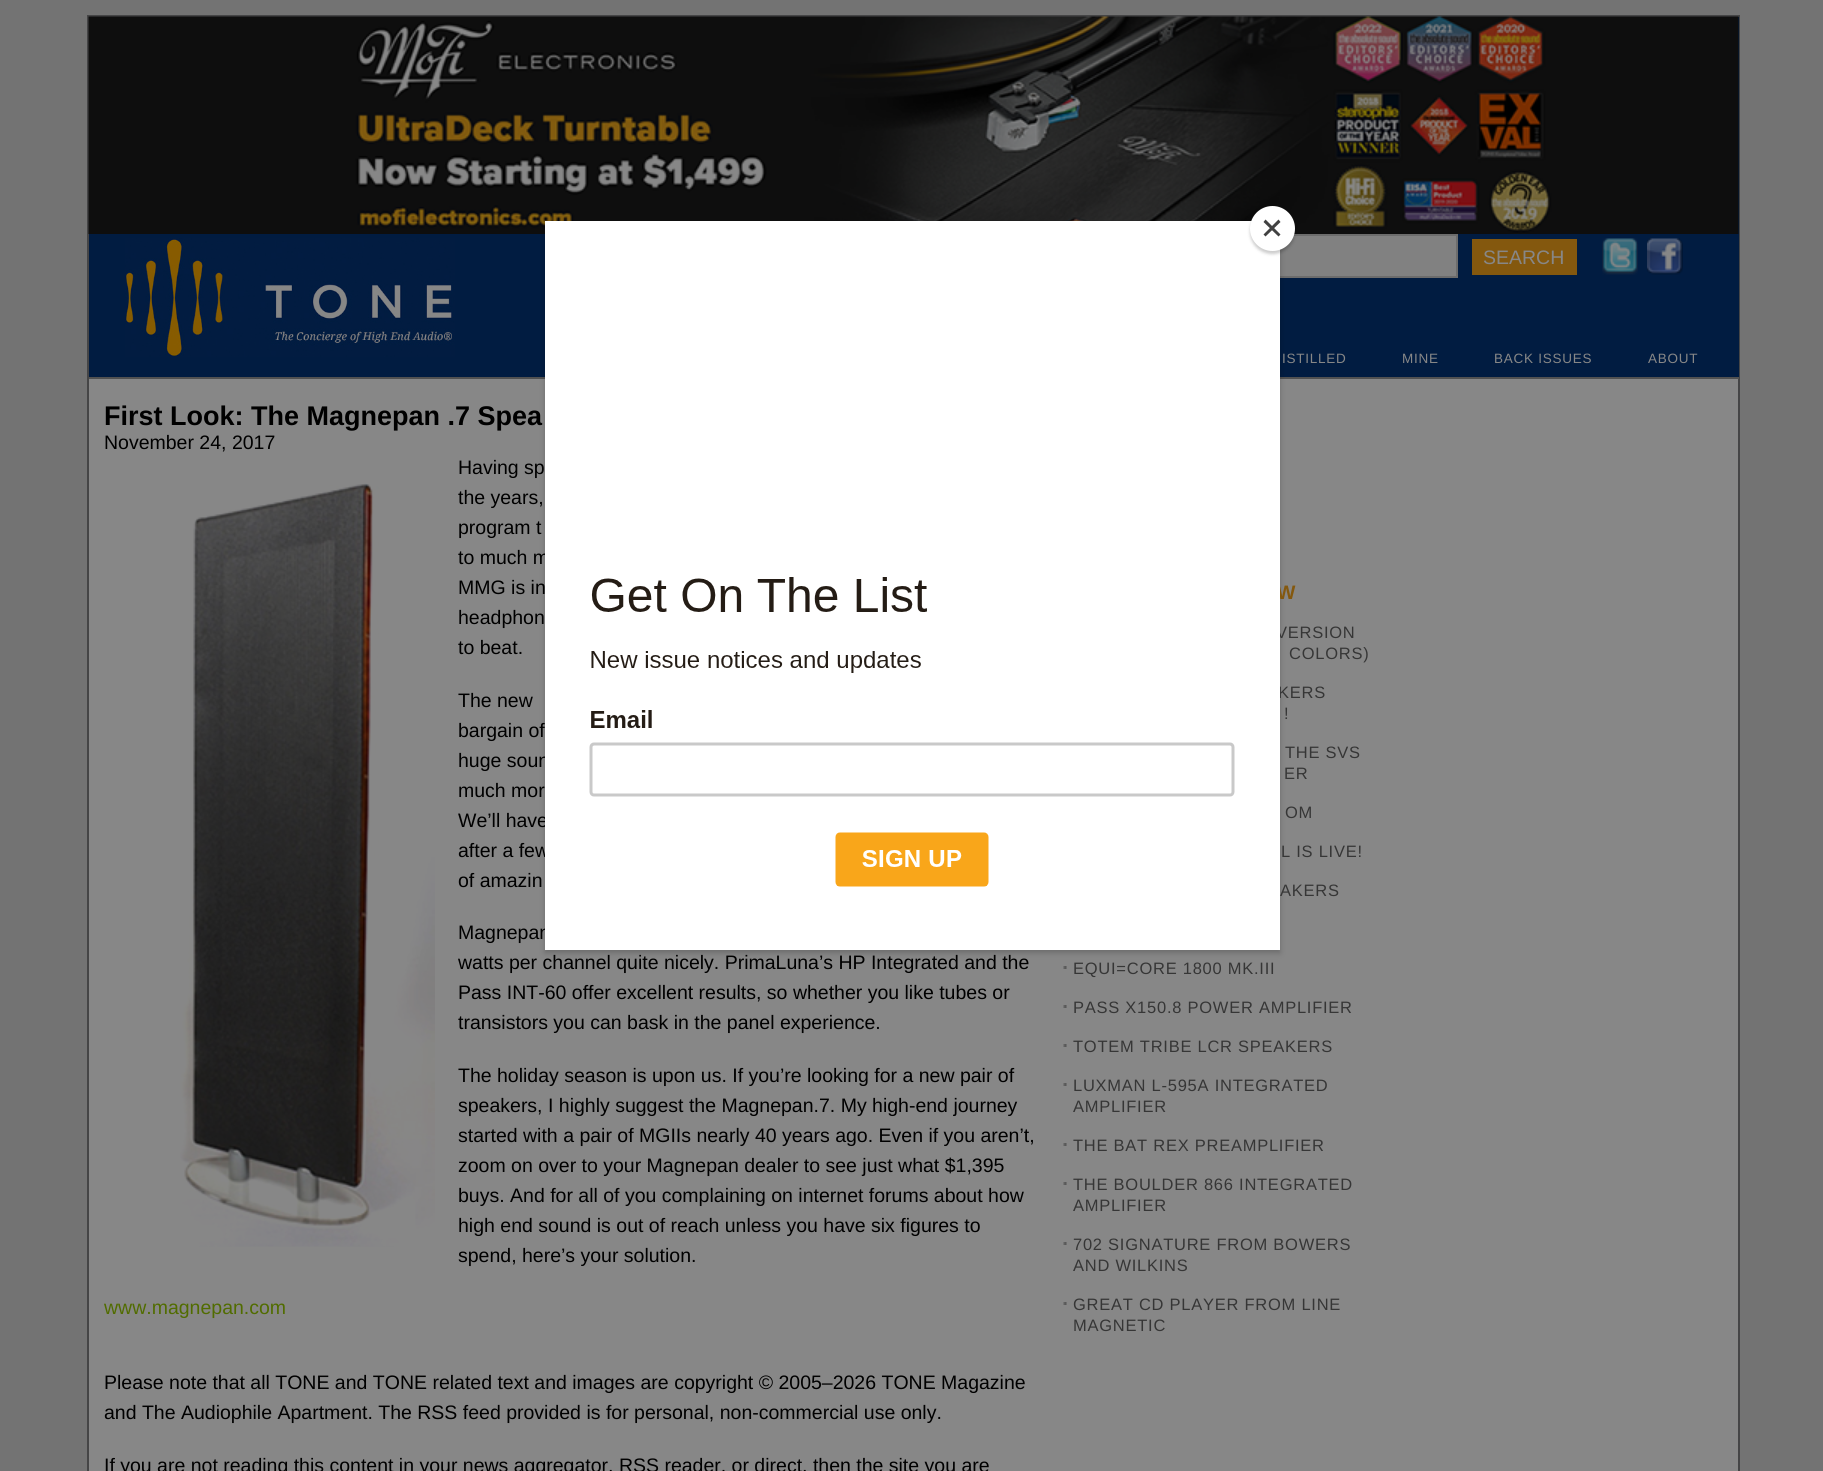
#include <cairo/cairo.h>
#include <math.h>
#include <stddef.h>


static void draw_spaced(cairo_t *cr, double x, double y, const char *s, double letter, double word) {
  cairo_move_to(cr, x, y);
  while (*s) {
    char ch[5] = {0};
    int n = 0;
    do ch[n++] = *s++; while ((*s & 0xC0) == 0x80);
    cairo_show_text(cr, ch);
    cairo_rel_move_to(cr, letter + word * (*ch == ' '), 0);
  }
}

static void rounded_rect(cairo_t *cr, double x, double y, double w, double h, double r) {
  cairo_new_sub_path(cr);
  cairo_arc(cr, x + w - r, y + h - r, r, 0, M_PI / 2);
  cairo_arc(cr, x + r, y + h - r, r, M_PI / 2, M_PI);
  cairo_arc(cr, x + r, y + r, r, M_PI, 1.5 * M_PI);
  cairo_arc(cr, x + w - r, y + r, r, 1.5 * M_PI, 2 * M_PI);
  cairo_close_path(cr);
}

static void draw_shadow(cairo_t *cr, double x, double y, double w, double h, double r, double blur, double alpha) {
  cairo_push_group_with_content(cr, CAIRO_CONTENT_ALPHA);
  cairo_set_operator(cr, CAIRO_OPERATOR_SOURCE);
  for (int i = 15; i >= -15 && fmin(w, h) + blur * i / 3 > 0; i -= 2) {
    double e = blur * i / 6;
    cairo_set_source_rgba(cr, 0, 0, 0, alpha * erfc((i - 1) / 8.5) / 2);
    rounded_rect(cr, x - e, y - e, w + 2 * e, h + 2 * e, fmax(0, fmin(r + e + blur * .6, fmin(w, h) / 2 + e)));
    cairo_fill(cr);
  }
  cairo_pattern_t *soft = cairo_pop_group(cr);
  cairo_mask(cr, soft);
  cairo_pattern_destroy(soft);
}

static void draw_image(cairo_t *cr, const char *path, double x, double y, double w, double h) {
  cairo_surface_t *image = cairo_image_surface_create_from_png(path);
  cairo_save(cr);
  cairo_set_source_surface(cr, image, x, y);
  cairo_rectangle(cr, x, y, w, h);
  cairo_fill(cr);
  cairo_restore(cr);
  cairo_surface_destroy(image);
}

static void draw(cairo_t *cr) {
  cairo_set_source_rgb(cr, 115 / 255.0, 115 / 255.0, 115 / 255.0);
  cairo_paint(cr);
  cairo_set_source_rgb(cr, 135 / 255.0, 135 / 255.0, 135 / 255.0);
  cairo_rectangle(cr, 89, 379, 1649, 1092);
  cairo_fill(cr);
  cairo_rectangle(cr, 88, 16, 1651, 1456);
  cairo_set_source_rgb(cr, 69 / 255.0, 69 / 255.0, 70 / 255.0);
  cairo_stroke(cr);
  cairo_set_source_rgb(cr, 1 / 255.0, 28 / 255.0, 65 / 255.0);
  cairo_rectangle(cr, 1738, 17, 1, 210);
  cairo_fill(cr);
  cairo_rectangle(cr, 89, 227, 1650, 150);
  cairo_fill(cr);
  draw_image(cr, "images/2.png", 88, 16, 1651, 218);
  cairo_set_source_rgb(cr, 81 / 255.0, 81 / 255.0, 81 / 255.0);
  cairo_rectangle(cr, 89, 377, 1650, 2);
  cairo_fill(cr);
  cairo_set_source_rgb(cr, 129 / 255.0, 129 / 255.0, 129 / 255.0);
  cairo_rectangle(cr, 1280, 236, 176, 40);
  cairo_fill(cr);
  cairo_rectangle(cr, 1239, 235, 218, 42);
  cairo_set_source_rgb(cr, 108 / 255.0, 108 / 255.0, 108 / 255.0);
  cairo_stroke(cr);
  cairo_set_source_rgb(cr, 0, 0, 0);
  draw_shadow(cr, 545, 224, 735, 729, 0, 3, 0.2);
  draw_image(cr, "images/3.png", 125, 238, 330, 119);
  cairo_set_source_rgb(cr, 132 / 255.0, 88 / 255.0, 14 / 255.0);
  cairo_rectangle(cr, 1472, 239, 105, 36);
  cairo_fill(cr);
  draw_image(cr, "images/4.png", 1602, 238, 36, 37);
  draw_image(cr, "images/5.png", 1647, 238, 36, 37);
  draw_image(cr, "images/6.png", 180, 483, 255, 764);
  draw_image(cr, "images/7.png", 1063, 966, 4, 3);
  draw_image(cr, "images/7.png", 1063, 1005, 4, 3);
  draw_image(cr, "images/7.png", 1063, 1044, 4, 3);
  draw_image(cr, "images/7.png", 1063, 1083, 4, 3);
  draw_image(cr, "images/7.png", 1063, 1143, 4, 3);
  draw_image(cr, "images/7.png", 1063, 1182, 4, 3);
  draw_image(cr, "images/7.png", 1063, 1242, 4, 3);
  draw_image(cr, "images/7.png", 1063, 1302, 4, 3);
  cairo_select_font_face(cr, "Liberation Sans", CAIRO_FONT_SLANT_NORMAL, CAIRO_FONT_WEIGHT_NORMAL);
  cairo_set_font_size(cr, 19.5);
  cairo_set_source_rgb(cr, 135 / 255.0, 135 / 255.0, 135 / 255.0);
  cairo_move_to(cr, 1483, 264);
  cairo_show_text(cr, "SEARCH");
  cairo_set_font_size(cr, 13.5);
  draw_spaced(cr, 1282, 363, "ISTILLED", 0.75, 0);
  draw_spaced(cr, 1402, 363, "MINE", 0.75, 0);
  draw_spaced(cr, 1494, 363, "BACK ISSUES", 0.75, 0);
  draw_spaced(cr, 1648, 363, "ABOUT", 0.75, 0);
  cairo_select_font_face(cr, "Liberation Sans", CAIRO_FONT_SLANT_NORMAL, CAIRO_FONT_WEIGHT_BOLD);
  cairo_set_font_size(cr, 27);
  cairo_set_source_rgb(cr, 0, 0, 0);
  cairo_move_to(cr, 104, 425);
  cairo_show_text(cr, "First Look: The Magnepan .7 Spea");
  cairo_select_font_face(cr, "Liberation Sans", CAIRO_FONT_SLANT_NORMAL, CAIRO_FONT_WEIGHT_NORMAL);
  cairo_set_font_size(cr, 19.5);
  cairo_move_to(cr, 104, 449);
  cairo_show_text(cr, "November 24, 2017");
  cairo_move_to(cr, 458, 474);
  cairo_show_text(cr, "Having sp");
  cairo_move_to(cr, 458, 504);
  cairo_show_text(cr, "the years,");
  cairo_move_to(cr, 458, 534);
  cairo_show_text(cr, "program t");
  cairo_move_to(cr, 458, 564);
  cairo_show_text(cr, "to much m");
  cairo_move_to(cr, 458, 594);
  cairo_show_text(cr, "MMG is in");
  cairo_move_to(cr, 458, 624);
  cairo_show_text(cr, "headphon");
  cairo_move_to(cr, 458, 654);
  cairo_show_text(cr, "to beat.");
  cairo_move_to(cr, 458, 707);
  cairo_show_text(cr, "The new");
  cairo_move_to(cr, 458, 737);
  cairo_show_text(cr, "bargain of");
  cairo_move_to(cr, 458, 767);
  cairo_show_text(cr, "huge soun");
  cairo_move_to(cr, 458, 797);
  cairo_show_text(cr, "much mor");
  cairo_move_to(cr, 458, 827);
  cairo_show_text(cr, "We’ll have");
  cairo_move_to(cr, 458, 857);
  cairo_show_text(cr, "after a few");
  cairo_move_to(cr, 458, 887);
  cairo_show_text(cr, "of amazin");
  cairo_move_to(cr, 458, 939);
  cairo_show_text(cr, "Magnepan");
  cairo_move_to(cr, 458, 969);
  cairo_show_text(cr, "watts per channel quite nicely. PrimaLuna’s HP Integrated and the");
  cairo_move_to(cr, 458, 999);
  cairo_show_text(cr, "Pass INT-60 offer excellent results, so whether you like tubes or");
  cairo_move_to(cr, 458, 1029);
  cairo_show_text(cr, "transistors you can bask in the panel experience.");
  cairo_move_to(cr, 458, 1082);
  cairo_show_text(cr, "The holiday season is upon us. If you’re looking for a new pair of");
  cairo_move_to(cr, 458, 1112);
  cairo_show_text(cr, "speakers, I highly suggest the Magnepan.7. My high-end journey");
  cairo_move_to(cr, 458, 1142);
  cairo_show_text(cr, "started with a pair of MGIIs nearly 40 years ago. Even if you aren’t,");
  cairo_move_to(cr, 458, 1172);
  cairo_show_text(cr, "zoom on over to your Magnepan dealer to see just what $1,395");
  cairo_move_to(cr, 458, 1202);
  cairo_show_text(cr, "buys. And for all of you complaining on internet forums about how");
  cairo_move_to(cr, 458, 1232);
  cairo_show_text(cr, "high end sound is out of reach unless you have six figures to");
  cairo_move_to(cr, 458, 1262);
  cairo_show_text(cr, "spend, here’s your solution.");
  cairo_set_source_rgb(cr, 81 / 255.0, 108 / 255.0, 0);
  cairo_move_to(cr, 104, 1314);
  cairo_show_text(cr, "www.magnepan.com");
  cairo_set_source_rgb(cr, 0, 0, 0);
  cairo_move_to(cr, 104, 1389);
  cairo_show_text(cr, "Please note that all TONE and TONE related text and images are copyright © 2005–2026 TONE Magazine");
  cairo_move_to(cr, 104, 1419);
  cairo_show_text(cr, "and The Audiophile Apartment. The RSS feed provided is for personal, non-commercial use only.");
  cairo_move_to(cr, 104, 1472);
  cairo_show_text(cr, "If you are not reading this content in your news aggregator, RSS reader, or direct, then the site you are");
  cairo_select_font_face(cr, "Liberation Sans", CAIRO_FONT_SLANT_NORMAL, CAIRO_FONT_WEIGHT_BOLD);
  cairo_set_source_rgb(cr, 132 / 255.0, 88 / 255.0, 14 / 255.0);
  cairo_move_to(cr, 1277, 599);
  cairo_show_text(cr, "W");
  cairo_select_font_face(cr, "Liberation Sans", CAIRO_FONT_SLANT_NORMAL, CAIRO_FONT_WEIGHT_NORMAL);
  cairo_set_font_size(cr, 16.5);
  cairo_set_source_rgb(cr, 54 / 255.0, 54 / 255.0, 54 / 255.0);
  draw_spaced(cr, 1276, 638, "VERSION", 0.75, 0);
  draw_spaced(cr, 1289, 659, "COLORS)", 0.75, 0);
  draw_spaced(cr, 1278, 698, "KERS", 0.75, 0);
  draw_image(cr, "images/1.png", 545, 221, 735, 729);
  cairo_set_source_rgb(cr, 0, 0, 0);
  draw_shadow(cr, 1250, 209, 45, 45, 22.5, 1.5, 0.2);
  cairo_set_source_rgb(cr, 1, 1, 1);
  cairo_arc(cr, 1272.5, 228.5, 22.5, 0, 2 * M_PI);
  cairo_fill(cr);
  cairo_set_source_rgb(cr, 65 / 255.0, 65 / 255.0, 65 / 255.0);
  cairo_new_path(cr);
  cairo_move_to(cr, 1278.5, 219.5);
  cairo_line_to(cr, 1280.5, 222);
  cairo_line_to(cr, 1265.5, 236.5);
  cairo_line_to(cr, 1263.5, 234.5);
  cairo_close_path(cr);
  cairo_fill(cr);
  cairo_new_path(cr);
  cairo_move_to(cr, 1263.5, 222);
  cairo_line_to(cr, 1265.5, 219.5);
  cairo_line_to(cr, 1280.5, 234.5);
  cairo_line_to(cr, 1278.5, 236.5);
  cairo_close_path(cr);
  cairo_fill(cr);
  cairo_set_source_rgb(cr, 54 / 255.0, 54 / 255.0, 54 / 255.0);
  draw_spaced(cr, 1284, 719, "!", 0.75, 0);
  draw_spaced(cr, 1285, 758, "THE SVS", 0.75, 0);
  draw_spaced(cr, 1284, 779, "ER", 0.75, 0);
  draw_spaced(cr, 1285, 818, "OM", 0.75, 0);
  draw_spaced(cr, 1281, 857, "L IS LIVE!", 0.75, 0);
  draw_spaced(cr, 1280, 896, "AKERS", 0.75, 0);
  draw_spaced(cr, 1073, 974, "EQUI=CORE 1800 MK.III", 0.75, 0);
  draw_spaced(cr, 1073, 1013, "PASS X150.8 POWER AMPLIFIER", 0.75, 0);
  draw_spaced(cr, 1073, 1052, "TOTEM TRIBE LCR SPEAKERS", 0.75, 0);
  draw_spaced(cr, 1073, 1091, "LUXMAN L-595A INTEGRATED", 0.75, 0);
  draw_spaced(cr, 1073, 1112, "AMPLIFIER", 0.75, 0);
  draw_spaced(cr, 1073, 1151, "THE BAT REX PREAMPLIFIER", 0.75, 0);
  draw_spaced(cr, 1073, 1190, "THE BOULDER 866 INTEGRATED", 0.75, 0);
  draw_spaced(cr, 1073, 1211, "AMPLIFIER", 0.75, 0);
  draw_spaced(cr, 1073, 1250, "702 SIGNATURE FROM BOWERS", 0.75, 0);
  draw_spaced(cr, 1073, 1271, "AND WILKINS", 0.75, 0);
  draw_spaced(cr, 1073, 1310, "GREAT CD PLAYER FROM LINE", 0.75, 0);
  draw_spaced(cr, 1073, 1331, "MAGNETIC", 0.75, 0);
}

int main(void) {
  cairo_surface_t *surface = cairo_image_surface_create(CAIRO_FORMAT_RGB24, 1823, 1471);
  cairo_t *cr = cairo_create(surface);
  cairo_font_options_t *options = cairo_font_options_create();
  cairo_font_options_set_hint_metrics(options, CAIRO_HINT_METRICS_OFF);
  cairo_font_options_set_hint_style(options, CAIRO_HINT_STYLE_NONE);
  cairo_set_font_options(cr, options);
  cairo_set_miter_limit(cr, 4);
  draw(cr);
  cairo_surface_write_to_png(surface, "out.png");
  cairo_font_options_destroy(options);
  cairo_destroy(cr);
  cairo_surface_destroy(surface);
  return 0;
}
